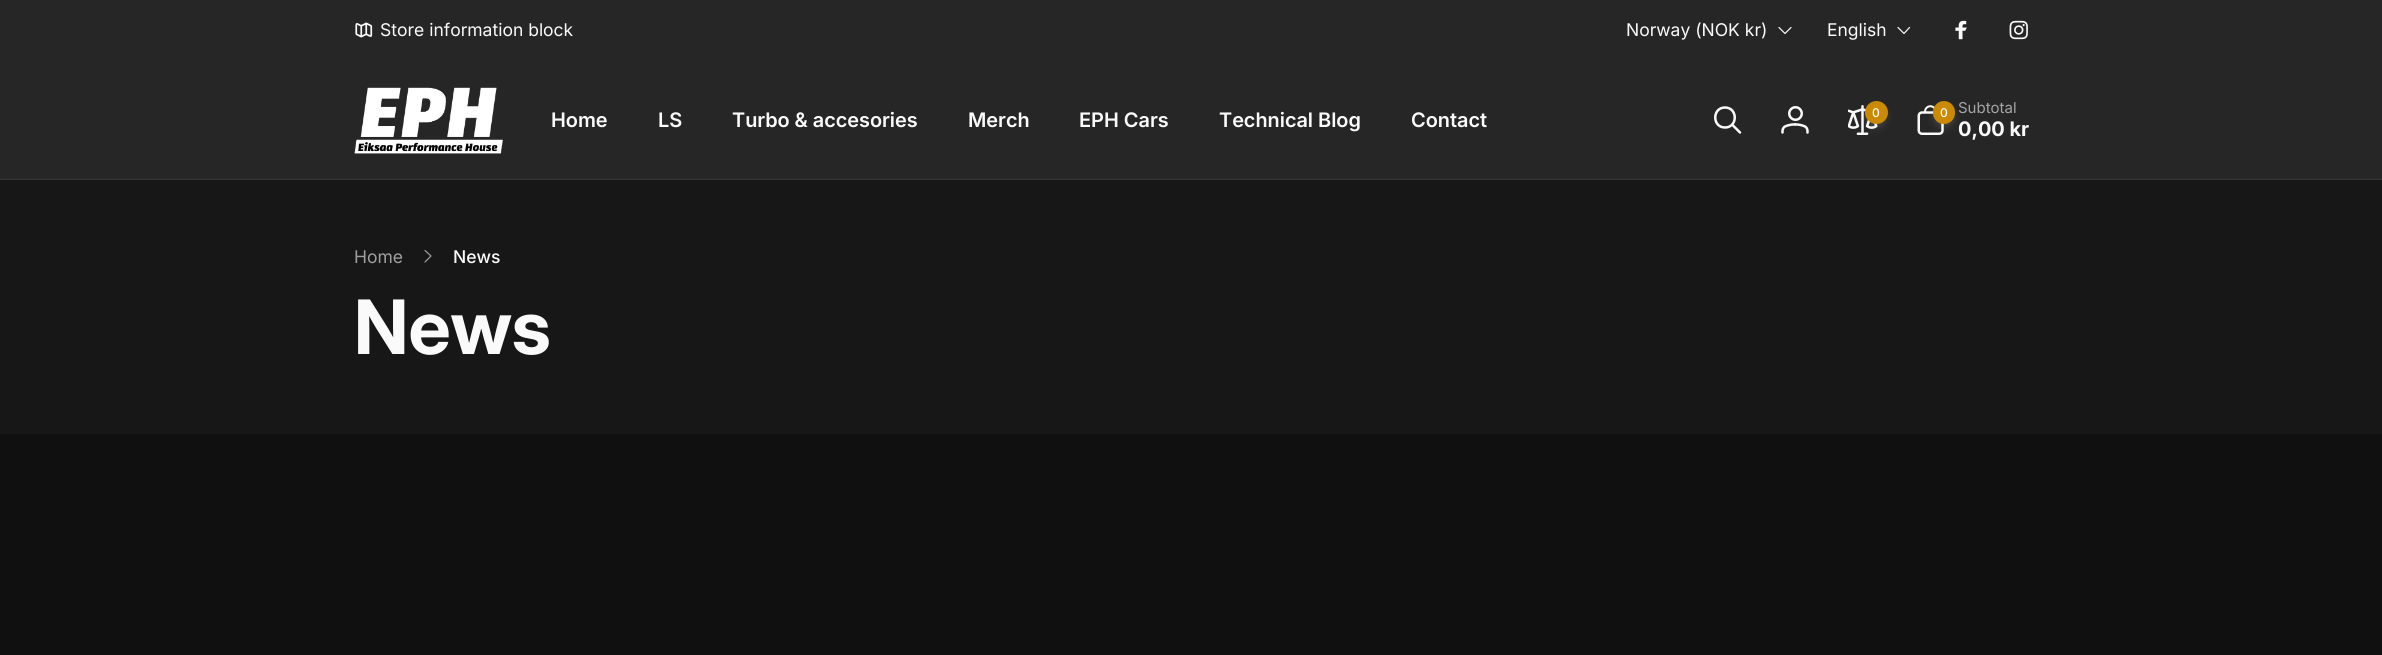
#include <cairo/cairo.h>
#include <math.h>
#include <stddef.h>


static void rounded_rect(cairo_t *cr, double x, double y, double w, double h, double r) {
  cairo_new_sub_path(cr);
  cairo_arc(cr, x + w - r, y + h - r, r, 0, M_PI / 2);
  cairo_arc(cr, x + r, y + h - r, r, M_PI / 2, M_PI);
  cairo_arc(cr, x + r, y + r, r, M_PI, 1.5 * M_PI);
  cairo_arc(cr, x + w - r, y + r, r, 1.5 * M_PI, 2 * M_PI);
  cairo_close_path(cr);
}

static void draw_shadow(cairo_t *cr, double x, double y, double w, double h, double r, double blur, double alpha) {
  cairo_push_group_with_content(cr, CAIRO_CONTENT_ALPHA);
  cairo_set_operator(cr, CAIRO_OPERATOR_SOURCE);
  for (int i = 15; i >= -15 && fmin(w, h) + blur * i / 3 > 0; i -= 2) {
    double e = blur * i / 6;
    cairo_set_source_rgba(cr, 0, 0, 0, alpha * erfc((i - 1) / 8.5) / 2);
    rounded_rect(cr, x - e, y - e, w + 2 * e, h + 2 * e, fmax(0, fmin(r + e + blur * .6, fmin(w, h) / 2 + e)));
    cairo_fill(cr);
  }
  cairo_pattern_t *soft = cairo_pop_group(cr);
  cairo_mask(cr, soft);
  cairo_pattern_destroy(soft);
}

static void draw_image(cairo_t *cr, const char *path, double x, double y, double w, double h) {
  cairo_surface_t *image = cairo_image_surface_create_from_png(path);
  cairo_save(cr);
  cairo_set_source_surface(cr, image, x, y);
  cairo_rectangle(cr, x, y, w, h);
  cairo_fill(cr);
  cairo_restore(cr);
  cairo_surface_destroy(image);
}

static void draw(cairo_t *cr) {
  cairo_set_source_rgb(cr, 16 / 255.0, 16 / 255.0, 16 / 255.0);
  cairo_paint(cr);
  cairo_set_source_rgb(cr, 38 / 255.0, 38 / 255.0, 38 / 255.0);
  cairo_rectangle(cr, 0, 0, 2382, 179);
  cairo_fill(cr);
  draw_image(cr, "images/1.png", 355, 22, 18, 16);
  cairo_new_path(cr);
  cairo_move_to(cr, 1791, 27.5);
  cairo_line_to(cr, 1785, 33.5);
  cairo_line_to(cr, 1779, 27.5);
  cairo_set_source_rgb(cr, 250 / 255.0, 250 / 255.0, 250 / 255.0);
  cairo_set_line_width(cr, 1.2);
  cairo_set_line_cap(cr, CAIRO_LINE_CAP_ROUND);
  cairo_set_line_join(cr, CAIRO_LINE_JOIN_ROUND);
  cairo_stroke(cr);
  cairo_new_path(cr);
  cairo_move_to(cr, 1909.5, 27.5);
  cairo_line_to(cr, 1904, 33.5);
  cairo_line_to(cr, 1898, 27.5);
  cairo_stroke(cr);
  draw_image(cr, "images/2.png", 1955, 20, 12, 20);
  draw_image(cr, "images/3.png", 2009, 20, 19, 20);
  cairo_set_source_rgb(cr, 55 / 255.0, 55 / 255.0, 55 / 255.0);
  cairo_rectangle(cr, 0, 179, 2382, 1);
  cairo_fill(cr);
  draw_image(cr, "images/4.png", 354, 87, 149, 67);
  cairo_new_path(cr);
  cairo_move_to(cr, 1740, 132.5);
  cairo_line_to(cr, 1732, 124.5);
  cairo_move_to(cr, 1725, 127.5);
  cairo_curve_to(cr, 1738, 127.5, 1738, 107.5, 1725, 107.5);
  cairo_curve_to(cr, 1712, 107.5, 1712, 127.5, 1725, 127.5);
  cairo_close_path(cr);
  cairo_set_source_rgb(cr, 250 / 255.0, 250 / 255.0, 250 / 255.0);
  cairo_set_line_width(cr, 2.5);
  cairo_stroke(cr);
  draw_image(cr, "images/5.png", 1781, 106, 28, 28);
  draw_image(cr, "images/6.png", 1848, 105, 30, 30);
  cairo_set_source_rgb(cr, 250 / 255.0, 250 / 255.0, 250 / 255.0);
  draw_shadow(cr, 1866, 105, 20, 20, 10, 2.5, 0.06);
  draw_shadow(cr, 1866, 108, 20, 20, 10, 4, 0.1);
  cairo_set_source_rgb(cr, 202 / 255.0, 138 / 255.0, 4 / 255.0);
  cairo_arc(cr, 1876.5, 112.5, 11.5, 0, 2 * M_PI);
  cairo_fill(cr);
  draw_image(cr, "images/7.png", 1917, 105, 27, 30);
  cairo_set_source_rgb(cr, 250 / 255.0, 250 / 255.0, 250 / 255.0);
  draw_shadow(cr, 1934, 105, 20, 20, 10, 2.5, 0.06);
  draw_shadow(cr, 1934, 108, 20, 20, 10, 4, 0.1);
  cairo_set_source_rgb(cr, 202 / 255.0, 138 / 255.0, 4 / 255.0);
  rounded_rect(cr, 1933, 101, 22, 23, 11);
  cairo_fill(cr);
  cairo_set_source_rgb(cr, 23 / 255.0, 23 / 255.0, 23 / 255.0);
  cairo_rectangle(cr, 0, 180, 2382, 254);
  cairo_fill(cr);
  cairo_new_path(cr);
  cairo_move_to(cr, 425, 250.5);
  cairo_line_to(cr, 431, 256);
  cairo_line_to(cr, 425, 262);
  cairo_set_source_rgb(cr, 159 / 255.0, 159 / 255.0, 159 / 255.0);
  cairo_set_line_width(cr, 1.2);
  cairo_stroke(cr);
  cairo_select_font_face(cr, "Inter", CAIRO_FONT_SLANT_NORMAL, CAIRO_FONT_WEIGHT_NORMAL);
  cairo_set_font_size(cr, 17.5);
  cairo_set_source_rgb(cr, 250 / 255.0, 250 / 255.0, 250 / 255.0);
  cairo_move_to(cr, 380, 36);
  cairo_show_text(cr, "Store information block");
  cairo_move_to(cr, 1626, 36);
  cairo_show_text(cr, "Norway (NOK kr)");
  cairo_move_to(cr, 1827, 36);
  cairo_show_text(cr, "English");
  cairo_select_font_face(cr, "Inter SemiBold", CAIRO_FONT_SLANT_NORMAL, CAIRO_FONT_WEIGHT_NORMAL);
  cairo_set_font_size(cr, 20);
  cairo_move_to(cr, 551, 127);
  cairo_show_text(cr, "Home");
  cairo_move_to(cr, 658, 127);
  cairo_show_text(cr, "LS");
  cairo_move_to(cr, 732, 127);
  cairo_show_text(cr, "Turbo & accesories");
  cairo_move_to(cr, 968, 127);
  cairo_show_text(cr, "Merch");
  cairo_move_to(cr, 1079, 127);
  cairo_show_text(cr, "EPH Cars");
  cairo_move_to(cr, 1219, 127);
  cairo_show_text(cr, "Technical Blog");
  cairo_move_to(cr, 1411, 127);
  cairo_show_text(cr, "Contact");
  cairo_select_font_face(cr, "Inter Medium", CAIRO_FONT_SLANT_NORMAL, CAIRO_FONT_WEIGHT_NORMAL);
  cairo_set_font_size(cr, 12);
  cairo_move_to(cr, 1872, 117);
  cairo_show_text(cr, "0");
  cairo_move_to(cr, 1940, 117);
  cairo_show_text(cr, "0");
  cairo_select_font_face(cr, "Inter", CAIRO_FONT_SLANT_NORMAL, CAIRO_FONT_WEIGHT_NORMAL);
  cairo_set_font_size(cr, 15);
  cairo_set_source_rgb(cr, 165 / 255.0, 165 / 255.0, 165 / 255.0);
  cairo_move_to(cr, 1958, 113);
  cairo_show_text(cr, "Subtotal");
  cairo_select_font_face(cr, "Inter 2", CAIRO_FONT_SLANT_NORMAL, CAIRO_FONT_WEIGHT_BOLD);
  cairo_set_font_size(cr, 20);
  cairo_set_source_rgb(cr, 250 / 255.0, 250 / 255.0, 250 / 255.0);
  cairo_move_to(cr, 1958, 136);
  cairo_show_text(cr, "0,00 kr");
  cairo_select_font_face(cr, "Inter", CAIRO_FONT_SLANT_NORMAL, CAIRO_FONT_WEIGHT_NORMAL);
  cairo_set_font_size(cr, 17.5);
  cairo_set_source_rgb(cr, 159 / 255.0, 159 / 255.0, 159 / 255.0);
  cairo_move_to(cr, 354, 263);
  cairo_show_text(cr, "Home");
  cairo_select_font_face(cr, "Inter Medium", CAIRO_FONT_SLANT_NORMAL, CAIRO_FONT_WEIGHT_NORMAL);
  cairo_set_source_rgb(cr, 250 / 255.0, 250 / 255.0, 250 / 255.0);
  cairo_move_to(cr, 453, 263);
  cairo_show_text(cr, "News");
  cairo_select_font_face(cr, "Inter", CAIRO_FONT_SLANT_NORMAL, CAIRO_FONT_WEIGHT_BOLD);
  cairo_set_font_size(cr, 75);
  cairo_move_to(cr, 354, 354);
  cairo_show_text(cr, "News");
}

int main(void) {
  cairo_surface_t *surface = cairo_image_surface_create(CAIRO_FORMAT_RGB24, 2382, 655);
  cairo_t *cr = cairo_create(surface);
  cairo_font_options_t *options = cairo_font_options_create();
  cairo_font_options_set_hint_metrics(options, CAIRO_HINT_METRICS_OFF);
  cairo_font_options_set_hint_style(options, CAIRO_HINT_STYLE_NONE);
  cairo_set_font_options(cr, options);
  cairo_set_miter_limit(cr, 4);
  draw(cr);
  cairo_surface_write_to_png(surface, "out.png");
  cairo_font_options_destroy(options);
  cairo_destroy(cr);
  cairo_surface_destroy(surface);
  return 0;
}
